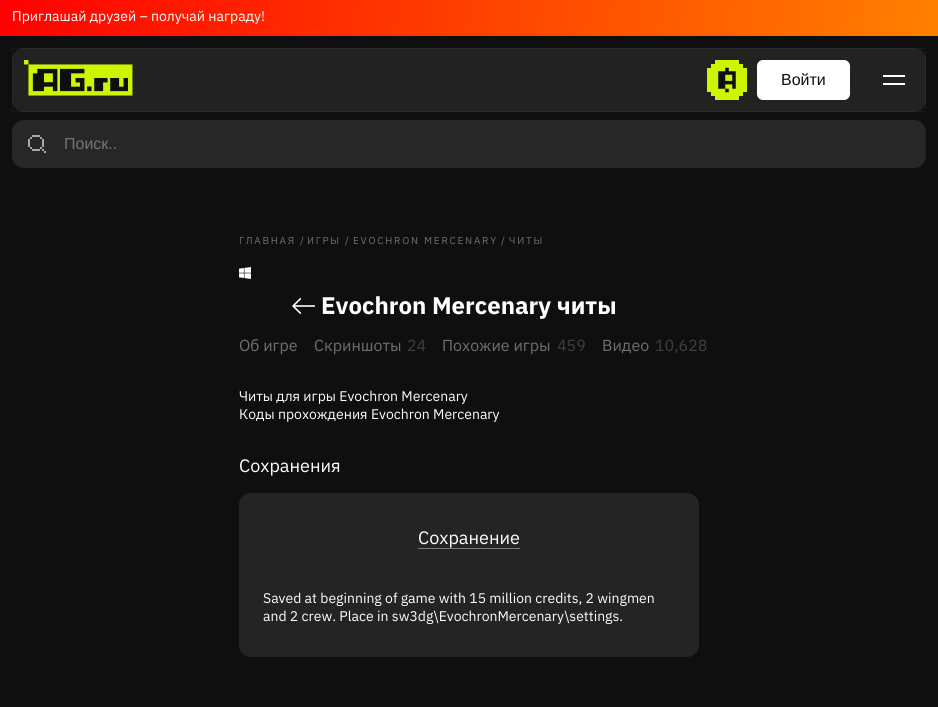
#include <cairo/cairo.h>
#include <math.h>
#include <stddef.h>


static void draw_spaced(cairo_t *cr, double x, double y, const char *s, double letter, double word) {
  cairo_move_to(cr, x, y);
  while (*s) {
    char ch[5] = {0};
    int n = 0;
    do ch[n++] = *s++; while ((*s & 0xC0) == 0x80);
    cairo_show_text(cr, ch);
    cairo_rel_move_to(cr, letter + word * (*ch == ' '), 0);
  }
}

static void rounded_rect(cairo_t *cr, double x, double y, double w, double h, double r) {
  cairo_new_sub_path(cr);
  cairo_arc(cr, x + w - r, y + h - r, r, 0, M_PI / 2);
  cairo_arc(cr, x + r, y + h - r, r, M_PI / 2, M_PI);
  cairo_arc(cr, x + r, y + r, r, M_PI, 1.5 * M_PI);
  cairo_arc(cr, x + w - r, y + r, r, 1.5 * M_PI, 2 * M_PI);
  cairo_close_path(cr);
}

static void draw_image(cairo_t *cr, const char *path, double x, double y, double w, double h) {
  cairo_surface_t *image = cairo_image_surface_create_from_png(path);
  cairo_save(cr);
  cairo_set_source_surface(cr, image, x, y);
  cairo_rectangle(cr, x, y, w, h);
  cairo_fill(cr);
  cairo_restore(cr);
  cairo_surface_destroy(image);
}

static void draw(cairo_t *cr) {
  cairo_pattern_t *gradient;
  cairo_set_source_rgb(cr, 15 / 255.0, 15 / 255.0, 15 / 255.0);
  cairo_paint(cr);
  gradient = cairo_pattern_create_linear(6.3, -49, 932, 81);
  cairo_pattern_add_color_stop_rgba(gradient, 0, 1, 0, 0, 1);
  cairo_pattern_add_color_stop_rgba(gradient, 1, 1, 128 / 255.0, 0, 1);
  cairo_set_source(cr, gradient);
  cairo_pattern_destroy(gradient);
  cairo_rectangle(cr, 0, 0, 938, 36);
  cairo_fill(cr);
  cairo_set_source_rgb(cr, 34 / 255.0, 34 / 255.0, 34 / 255.0);
  rounded_rect(cr, 12, 48, 914, 64, 12);
  cairo_fill(cr);
  cairo_rectangle(cr, 12.5, 48.5, 913, 63);
  cairo_set_source_rgba(cr, 1, 1, 1, 0.05);
  cairo_set_line_width(cr, 1);
  cairo_stroke(cr);
  draw_image(cr, "images/1.png", 24, 60, 109, 36);
  draw_image(cr, "images/2.png", 707, 60, 40, 40);
  cairo_set_source_rgb(cr, 1, 1, 1);
  rounded_rect(cr, 757, 60, 93, 40, 6);
  cairo_fill(cr);
  draw_image(cr, "images/3.png", 883, 75, 22, 10);
  cairo_set_source_rgb(cr, 39 / 255.0, 39 / 255.0, 39 / 255.0);
  rounded_rect(cr, 12, 120, 914, 48, 12);
  cairo_fill(cr);
  draw_image(cr, "images/4.png", 28, 135, 18, 18);
  draw_image(cr, "images/5.png", 239, 267, 12, 12);
  draw_image(cr, "images/6.png", 292, 298, 23, 16);
  cairo_set_source_rgb(cr, 36 / 255.0, 36 / 255.0, 36 / 255.0);
  rounded_rect(cr, 239, 493, 460, 164, 12);
  cairo_fill(cr);
  cairo_set_source_rgb(cr, 124 / 255.0, 124 / 255.0, 124 / 255.0);
  cairo_rectangle(cr, 418, 548, 102, 1);
  cairo_fill(cr);
  cairo_select_font_face(cr, "IBM Plex Sans", CAIRO_FONT_SLANT_NORMAL, CAIRO_FONT_WEIGHT_NORMAL);
  cairo_set_font_size(cr, 14);
  cairo_set_source_rgb(cr, 1, 1, 1);
  cairo_move_to(cr, 12, 21);
  cairo_show_text(cr, "Приглашай друзей – получай награду!");
  cairo_select_font_face(cr, "Liberation Sans", CAIRO_FONT_SLANT_NORMAL, CAIRO_FONT_WEIGHT_NORMAL);
  cairo_set_font_size(cr, 16);
  cairo_set_source_rgb(cr, 15 / 255.0, 15 / 255.0, 15 / 255.0);
  cairo_move_to(cr, 781, 85);
  cairo_show_text(cr, "Войти");
  cairo_set_source_rgb(cr, 117 / 255.0, 117 / 255.0, 117 / 255.0);
  cairo_move_to(cr, 64, 149);
  cairo_show_text(cr, "Поиск..");
  cairo_select_font_face(cr, "IBM Plex Sans", CAIRO_FONT_SLANT_NORMAL, CAIRO_FONT_WEIGHT_NORMAL);
  cairo_set_font_size(cr, 10);
  cairo_set_source_rgb(cr, 111 / 255.0, 111 / 255.0, 111 / 255.0);
  draw_spaced(cr, 239, 244, "ГЛАВНАЯ", 1.75, 0);
  cairo_move_to(cr, 300, 244);
  cairo_show_text(cr, "/");
  draw_spaced(cr, 307, 244, "ИГРЫ", 1.75, 0);
  cairo_move_to(cr, 345, 244);
  cairo_show_text(cr, "/");
  draw_spaced(cr, 353, 244, "EVOCHRON MERCENARY", 1.75, 0);
  cairo_move_to(cr, 501, 244);
  cairo_show_text(cr, "/");
  draw_spaced(cr, 509, 244, "ЧИТЫ", 1.75, 0);
  cairo_select_font_face(cr, "IBM Plex Sans", CAIRO_FONT_SLANT_NORMAL, CAIRO_FONT_WEIGHT_BOLD);
  cairo_set_font_size(cr, 24);
  cairo_set_source_rgb(cr, 1, 1, 1);
  cairo_move_to(cr, 321, 314);
  cairo_show_text(cr, "Evochron Mercenary читы");
  cairo_select_font_face(cr, "IBM Plex Sans", CAIRO_FONT_SLANT_NORMAL, CAIRO_FONT_WEIGHT_NORMAL);
  cairo_set_font_size(cr, 16);
  cairo_set_source_rgb(cr, 111 / 255.0, 111 / 255.0, 111 / 255.0);
  cairo_move_to(cr, 239, 351);
  cairo_show_text(cr, "Об игре");
  cairo_move_to(cr, 314, 351);
  cairo_show_text(cr, "Скриншоты");
  cairo_set_source_rgb(cr, 63 / 255.0, 63 / 255.0, 63 / 255.0);
  cairo_move_to(cr, 407, 351);
  cairo_show_text(cr, "24");
  cairo_set_source_rgb(cr, 111 / 255.0, 111 / 255.0, 111 / 255.0);
  cairo_move_to(cr, 442, 351);
  cairo_show_text(cr, "Похожие игры");
  cairo_set_source_rgb(cr, 63 / 255.0, 63 / 255.0, 63 / 255.0);
  cairo_move_to(cr, 557, 351);
  cairo_show_text(cr, "459");
  cairo_set_source_rgb(cr, 111 / 255.0, 111 / 255.0, 111 / 255.0);
  cairo_move_to(cr, 602, 351);
  cairo_show_text(cr, "Видео");
  cairo_set_source_rgb(cr, 63 / 255.0, 63 / 255.0, 63 / 255.0);
  cairo_move_to(cr, 655, 351);
  cairo_show_text(cr, "10,628");
  cairo_set_font_size(cr, 14);
  cairo_set_source_rgb(cr, 1, 1, 1);
  cairo_move_to(cr, 239, 401);
  cairo_show_text(cr, "Читы для игры Evochron Mercenary");
  cairo_move_to(cr, 239, 419);
  cairo_show_text(cr, "Коды прохождения Evochron Mercenary");
  cairo_set_font_size(cr, 18);
  cairo_move_to(cr, 239, 472);
  cairo_show_text(cr, "Сохранения");
  cairo_move_to(cr, 418, 544);
  cairo_show_text(cr, "Сохранение");
  cairo_set_font_size(cr, 14);
  cairo_move_to(cr, 263, 603);
  cairo_show_text(cr, "Saved at beginning of game with 15 million credits, 2 wingmen");
  cairo_move_to(cr, 263, 621);
  cairo_show_text(cr, "and 2 crew. Place in sw3dg\\EvochronMercenary\\settings.");
}

int main(void) {
  cairo_surface_t *surface = cairo_image_surface_create(CAIRO_FORMAT_RGB24, 938, 707);
  cairo_t *cr = cairo_create(surface);
  cairo_font_options_t *options = cairo_font_options_create();
  cairo_font_options_set_hint_metrics(options, CAIRO_HINT_METRICS_OFF);
  cairo_font_options_set_hint_style(options, CAIRO_HINT_STYLE_NONE);
  cairo_set_font_options(cr, options);
  cairo_set_miter_limit(cr, 4);
  draw(cr);
  cairo_surface_write_to_png(surface, "out.png");
  cairo_font_options_destroy(options);
  cairo_destroy(cr);
  cairo_surface_destroy(surface);
  return 0;
}
